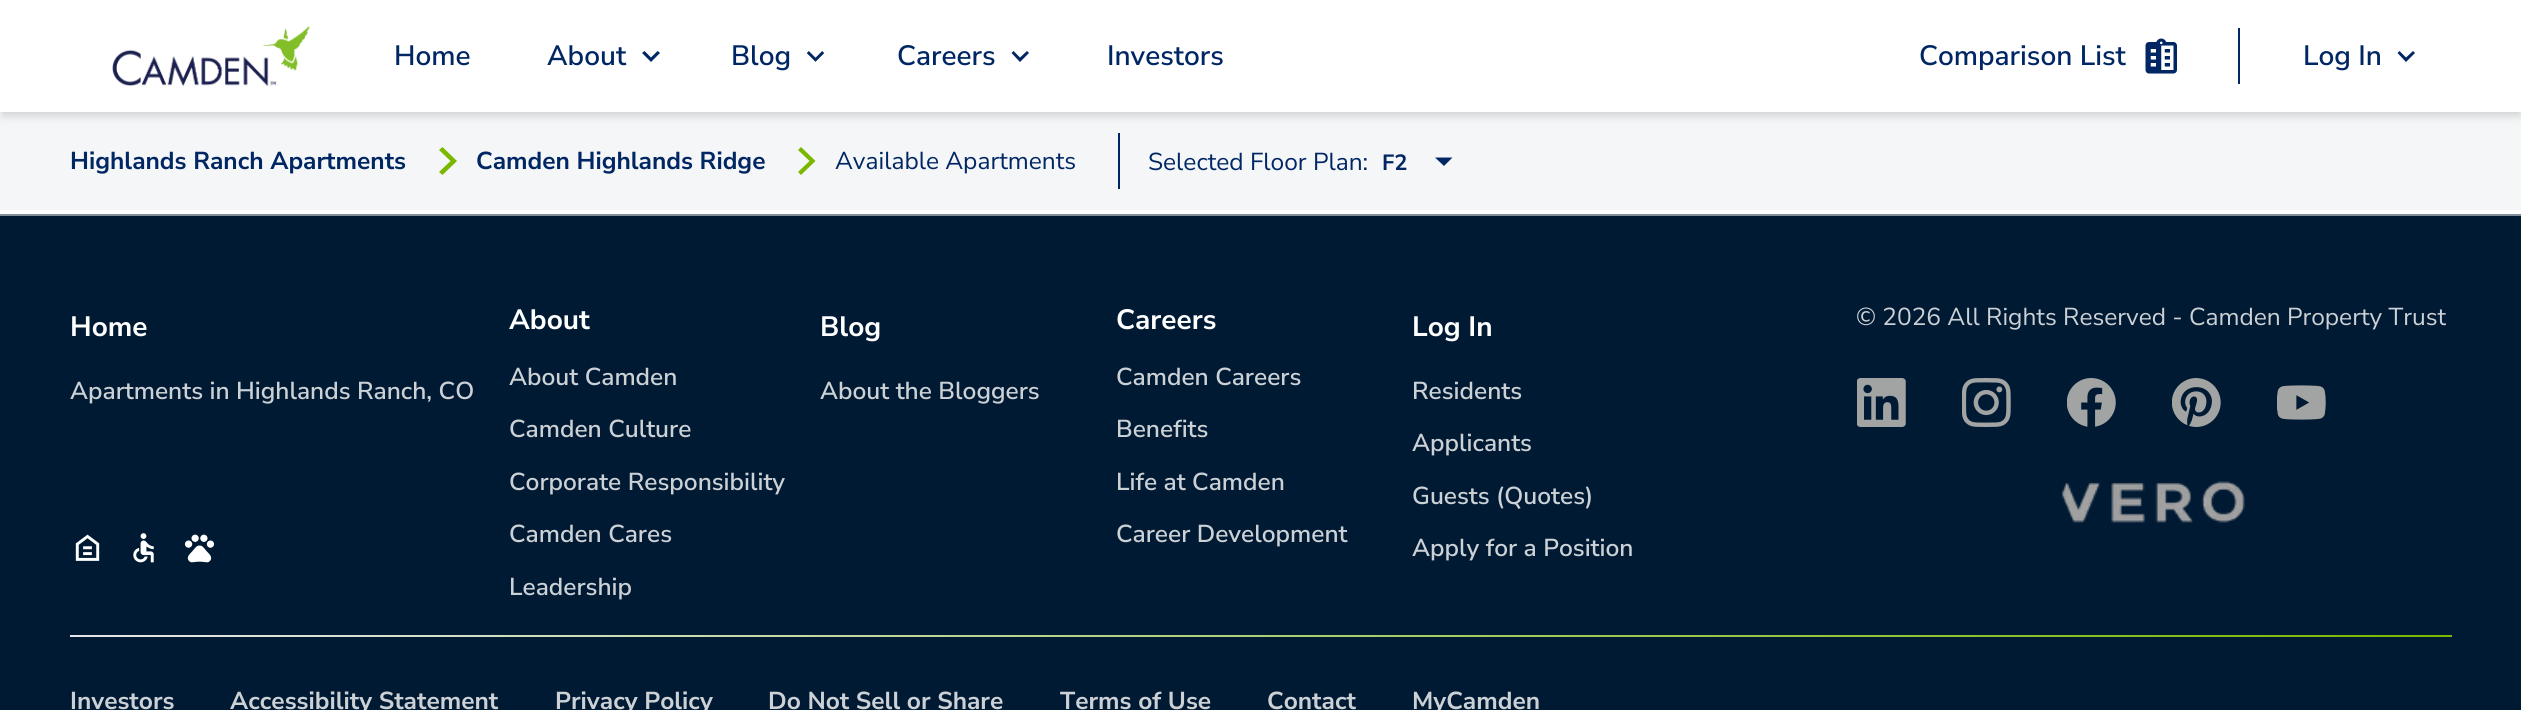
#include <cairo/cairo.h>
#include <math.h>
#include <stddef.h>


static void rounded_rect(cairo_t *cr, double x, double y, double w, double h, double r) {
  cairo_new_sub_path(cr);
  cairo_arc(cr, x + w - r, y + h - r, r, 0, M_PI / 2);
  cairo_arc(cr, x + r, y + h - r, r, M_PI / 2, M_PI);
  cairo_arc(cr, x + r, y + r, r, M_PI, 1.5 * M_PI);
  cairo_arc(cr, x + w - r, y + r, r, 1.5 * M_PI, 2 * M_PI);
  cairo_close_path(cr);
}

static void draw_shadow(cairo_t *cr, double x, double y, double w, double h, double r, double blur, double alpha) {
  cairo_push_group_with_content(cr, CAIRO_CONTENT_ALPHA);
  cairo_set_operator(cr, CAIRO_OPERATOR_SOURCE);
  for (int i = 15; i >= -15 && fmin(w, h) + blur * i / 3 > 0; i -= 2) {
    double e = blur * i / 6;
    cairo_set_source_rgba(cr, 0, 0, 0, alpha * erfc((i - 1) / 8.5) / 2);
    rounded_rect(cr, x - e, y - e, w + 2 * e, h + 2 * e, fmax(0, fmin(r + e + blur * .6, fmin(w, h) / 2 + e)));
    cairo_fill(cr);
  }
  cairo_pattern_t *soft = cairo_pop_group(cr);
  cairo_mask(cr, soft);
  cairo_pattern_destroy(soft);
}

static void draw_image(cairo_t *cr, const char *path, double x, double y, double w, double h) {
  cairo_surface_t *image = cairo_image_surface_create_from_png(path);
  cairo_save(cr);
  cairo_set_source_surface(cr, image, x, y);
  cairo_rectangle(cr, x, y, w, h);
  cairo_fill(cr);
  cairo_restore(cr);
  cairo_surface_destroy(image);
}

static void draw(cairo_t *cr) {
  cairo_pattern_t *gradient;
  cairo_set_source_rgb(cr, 1, 1, 1);
  cairo_paint(cr);
  cairo_set_source_rgb(cr, 245 / 255.0, 246 / 255.0, 247 / 255.0);
  cairo_rectangle(cr, 0, 112, 2521, 98);
  cairo_fill(cr);
  cairo_set_source_rgb(cr, 0, 0, 0);
  draw_shadow(cr, 2, 5, 2518, 109, 0, 3.5, 0.06);
  draw_shadow(cr, 2, 9, 2518, 108, 0, 5, 0.1);
  cairo_set_source_rgb(cr, 1, 1, 1);
  cairo_rectangle(cr, 0, 0, 2521, 112);
  cairo_fill(cr);
  draw_image(cr, "images/1.png", 112, 25, 198, 62);
  cairo_set_source_rgb(cr, 0, 38 / 255.0, 100 / 255.0);
  cairo_set_fill_rule(cr, CAIRO_FILL_RULE_EVEN_ODD);
  cairo_new_path(cr);
  cairo_move_to(cr, 657.5, 51);
  cairo_line_to(cr, 651, 57.5);
  cairo_line_to(cr, 644.5, 51);
  cairo_line_to(cr, 642, 53);
  cairo_line_to(cr, 651, 62);
  cairo_line_to(cr, 660, 53);
  cairo_close_path(cr);
  cairo_fill(cr);
  draw_image(cr, "images/2.png", 806, 51, 19, 11);
  cairo_new_path(cr);
  cairo_move_to(cr, 1027, 51);
  cairo_line_to(cr, 1020, 57.5);
  cairo_line_to(cr, 1013.5, 51);
  cairo_line_to(cr, 1011.5, 53);
  cairo_line_to(cr, 1020, 62);
  cairo_line_to(cr, 1029, 53);
  cairo_close_path(cr);
  cairo_fill(cr);
  draw_image(cr, "images/3.png", 2145, 38, 32, 36);
  cairo_rectangle(cr, 2238, 28, 2, 56);
  cairo_fill(cr);
  cairo_new_path(cr);
  cairo_move_to(cr, 2413, 51);
  cairo_line_to(cr, 2406, 57.5);
  cairo_line_to(cr, 2399.5, 51);
  cairo_line_to(cr, 2397.5, 53);
  cairo_line_to(cr, 2406, 62);
  cairo_line_to(cr, 2415, 53);
  cairo_close_path(cr);
  cairo_fill(cr);
  cairo_set_source_rgb(cr, 122 / 255.0, 184 / 255.0, 0);
  cairo_new_path(cr);
  cairo_move_to(cr, 439, 150);
  cairo_line_to(cr, 450.5, 161);
  cairo_line_to(cr, 439, 172);
  cairo_line_to(cr, 442.5, 175);
  cairo_line_to(cr, 457, 161);
  cairo_line_to(cr, 442.5, 147);
  cairo_close_path(cr);
  cairo_fill(cr);
  cairo_new_path(cr);
  cairo_move_to(cr, 798, 150);
  cairo_line_to(cr, 809.5, 161);
  cairo_line_to(cr, 798, 172);
  cairo_line_to(cr, 801, 175);
  cairo_line_to(cr, 815.5, 161);
  cairo_line_to(cr, 801, 147);
  cairo_close_path(cr);
  cairo_fill(cr);
  cairo_set_source_rgb(cr, 0, 38 / 255.0, 100 / 255.0);
  cairo_rectangle(cr, 1118, 133, 2, 56);
  cairo_fill(cr);
  cairo_new_path(cr);
  cairo_move_to(cr, 1435, 157.5);
  cairo_line_to(cr, 1444, 166);
  cairo_line_to(cr, 1452.5, 157.5);
  cairo_close_path(cr);
  cairo_fill(cr);
  cairo_set_source_rgb(cr, 0, 26 / 255.0, 51 / 255.0);
  cairo_rectangle(cr, 0, 216, 2521, 494);
  cairo_fill(cr);
  cairo_set_source_rgb(cr, 128 / 255.0, 141 / 255.0, 153 / 255.0);
  cairo_rectangle(cr, 0, 214, 2521, 2);
  cairo_fill(cr);
  draw_image(cr, "images/4.png", 1857, 378, 49, 49);
  draw_image(cr, "images/5.png", 1962, 378, 49, 49);
  draw_image(cr, "images/6.png", 2067, 378, 49, 49);
  draw_image(cr, "images/7.png", 2172, 378, 49, 49);
  draw_image(cr, "images/8.png", 2277, 385, 49, 35);
  draw_image(cr, "images/9.png", 2062, 481, 183, 42);
  draw_image(cr, "images/10.png", 75, 534, 25, 27);
  draw_image(cr, "images/11.png", 133, 533, 21, 30);
  draw_image(cr, "images/12.png", 184, 534, 31, 29);
  gradient = cairo_pattern_create_linear(70, 636, 2452, 636);
  cairo_pattern_add_color_stop_rgba(gradient, 0, 229 / 255.0, 231 / 255.0, 235 / 255.0, 1);
  cairo_pattern_add_color_stop_rgba(gradient, 1, 122 / 255.0, 184 / 255.0, 0, 1);
  cairo_set_source(cr, gradient);
  cairo_pattern_destroy(gradient);
  cairo_rectangle(cr, 70, 635, 2382, 2);
  cairo_fill(cr);
  cairo_select_font_face(cr, "Nunito Sans SemiBold", CAIRO_FONT_SLANT_NORMAL, CAIRO_FONT_WEIGHT_NORMAL);
  cairo_set_font_size(cr, 28);
  cairo_set_source_rgb(cr, 0, 38 / 255.0, 100 / 255.0);
  cairo_move_to(cr, 394, 65);
  cairo_show_text(cr, "Home");
  cairo_move_to(cr, 547, 65);
  cairo_show_text(cr, "About");
  cairo_move_to(cr, 731, 65);
  cairo_show_text(cr, "Blog");
  cairo_move_to(cr, 897, 65);
  cairo_show_text(cr, "Careers");
  cairo_move_to(cr, 1107, 65);
  cairo_show_text(cr, "Investors");
  cairo_move_to(cr, 1919, 65);
  cairo_show_text(cr, "Comparison List");
  cairo_move_to(cr, 2303, 65);
  cairo_show_text(cr, "Log In");
  cairo_select_font_face(cr, "Nunito Sans", CAIRO_FONT_SLANT_NORMAL, CAIRO_FONT_WEIGHT_BOLD);
  cairo_set_font_size(cr, 24.5);
  cairo_move_to(cr, 70, 169);
  cairo_show_text(cr, "Highlands Ranch Apartments");
  cairo_move_to(cr, 476, 169);
  cairo_show_text(cr, "Camden Highlands Ridge");
  cairo_select_font_face(cr, "Nunito Sans", CAIRO_FONT_SLANT_NORMAL, CAIRO_FONT_WEIGHT_NORMAL);
  cairo_move_to(cr, 835, 169);
  cairo_show_text(cr, "Available Apartments");
  cairo_move_to(cr, 1148, 170);
  cairo_show_text(cr, "Selected Floor Plan:");
  cairo_select_font_face(cr, "Nunito Sans", CAIRO_FONT_SLANT_NORMAL, CAIRO_FONT_WEIGHT_BOLD);
  cairo_set_font_size(cr, 22);
  cairo_move_to(cr, 1382, 170);
  cairo_show_text(cr, "F2");
  cairo_set_font_size(cr, 28);
  cairo_set_source_rgb(cr, 1, 1, 1);
  cairo_move_to(cr, 70, 336);
  cairo_show_text(cr, "Home");
  cairo_select_font_face(cr, "Nunito Sans SemiBold", CAIRO_FONT_SLANT_NORMAL, CAIRO_FONT_WEIGHT_NORMAL);
  cairo_set_font_size(cr, 24.5);
  cairo_set_source_rgb(cr, 204 / 255.0, 209 / 255.0, 214 / 255.0);
  cairo_move_to(cr, 70, 399);
  cairo_show_text(cr, "Apartments in Highlands Ranch, CO");
  cairo_select_font_face(cr, "Nunito Sans", CAIRO_FONT_SLANT_NORMAL, CAIRO_FONT_WEIGHT_BOLD);
  cairo_set_font_size(cr, 28);
  cairo_set_source_rgb(cr, 1, 1, 1);
  cairo_move_to(cr, 509, 329);
  cairo_show_text(cr, "About");
  cairo_select_font_face(cr, "Nunito Sans SemiBold", CAIRO_FONT_SLANT_NORMAL, CAIRO_FONT_WEIGHT_NORMAL);
  cairo_set_font_size(cr, 24.5);
  cairo_set_source_rgb(cr, 204 / 255.0, 209 / 255.0, 214 / 255.0);
  cairo_move_to(cr, 509, 385);
  cairo_show_text(cr, "About Camden");
  cairo_move_to(cr, 509, 437);
  cairo_show_text(cr, "Camden Culture");
  cairo_move_to(cr, 509, 490);
  cairo_show_text(cr, "Corporate Responsibility");
  cairo_move_to(cr, 509, 542);
  cairo_show_text(cr, "Camden Cares");
  cairo_move_to(cr, 509, 595);
  cairo_show_text(cr, "Leadership");
  cairo_select_font_face(cr, "Nunito Sans", CAIRO_FONT_SLANT_NORMAL, CAIRO_FONT_WEIGHT_BOLD);
  cairo_set_font_size(cr, 28);
  cairo_set_source_rgb(cr, 1, 1, 1);
  cairo_move_to(cr, 820, 336);
  cairo_show_text(cr, "Blog");
  cairo_select_font_face(cr, "Nunito Sans SemiBold", CAIRO_FONT_SLANT_NORMAL, CAIRO_FONT_WEIGHT_NORMAL);
  cairo_set_font_size(cr, 24.5);
  cairo_set_source_rgb(cr, 204 / 255.0, 209 / 255.0, 214 / 255.0);
  cairo_move_to(cr, 820, 399);
  cairo_show_text(cr, "About the Bloggers");
  cairo_select_font_face(cr, "Nunito Sans", CAIRO_FONT_SLANT_NORMAL, CAIRO_FONT_WEIGHT_BOLD);
  cairo_set_font_size(cr, 28);
  cairo_set_source_rgb(cr, 1, 1, 1);
  cairo_move_to(cr, 1116, 329);
  cairo_show_text(cr, "Careers");
  cairo_select_font_face(cr, "Nunito Sans SemiBold", CAIRO_FONT_SLANT_NORMAL, CAIRO_FONT_WEIGHT_NORMAL);
  cairo_set_font_size(cr, 24.5);
  cairo_set_source_rgb(cr, 204 / 255.0, 209 / 255.0, 214 / 255.0);
  cairo_move_to(cr, 1116, 385);
  cairo_show_text(cr, "Camden Careers");
  cairo_move_to(cr, 1116, 437);
  cairo_show_text(cr, "Benefits");
  cairo_move_to(cr, 1116, 490);
  cairo_show_text(cr, "Life at Camden");
  cairo_move_to(cr, 1116, 542);
  cairo_show_text(cr, "Career Development");
  cairo_select_font_face(cr, "Nunito Sans", CAIRO_FONT_SLANT_NORMAL, CAIRO_FONT_WEIGHT_BOLD);
  cairo_set_font_size(cr, 28);
  cairo_set_source_rgb(cr, 1, 1, 1);
  cairo_move_to(cr, 1412, 336);
  cairo_show_text(cr, "Log In");
  cairo_select_font_face(cr, "Nunito Sans SemiBold", CAIRO_FONT_SLANT_NORMAL, CAIRO_FONT_WEIGHT_NORMAL);
  cairo_set_font_size(cr, 24.5);
  cairo_set_source_rgb(cr, 204 / 255.0, 209 / 255.0, 214 / 255.0);
  cairo_move_to(cr, 1412, 399);
  cairo_show_text(cr, "Residents");
  cairo_move_to(cr, 1412, 451);
  cairo_show_text(cr, "Applicants");
  cairo_move_to(cr, 1412, 504);
  cairo_show_text(cr, "Guests (Quotes)");
  cairo_move_to(cr, 1412, 556);
  cairo_show_text(cr, "Apply for a Position");
  cairo_select_font_face(cr, "Nunito Sans", CAIRO_FONT_SLANT_NORMAL, CAIRO_FONT_WEIGHT_NORMAL);
  cairo_move_to(cr, 1856, 325);
  cairo_show_text(cr, "© 2026 All Rights Reserved - Camden Property Trust");
  cairo_select_font_face(cr, "Nunito Sans", CAIRO_FONT_SLANT_NORMAL, CAIRO_FONT_WEIGHT_BOLD);
  cairo_move_to(cr, 70, 709);
  cairo_show_text(cr, "Investors");
  cairo_move_to(cr, 230, 709);
  cairo_show_text(cr, "Accessibility Statement");
  cairo_move_to(cr, 555, 709);
  cairo_show_text(cr, "Privacy Policy");
  cairo_move_to(cr, 768, 709);
  cairo_show_text(cr, "Do Not Sell or Share");
  cairo_move_to(cr, 1060, 709);
  cairo_show_text(cr, "Terms of Use");
  cairo_move_to(cr, 1267, 709);
  cairo_show_text(cr, "Contact");
  cairo_move_to(cr, 1412, 709);
  cairo_show_text(cr, "MyCamden");
}

int main(void) {
  cairo_surface_t *surface = cairo_image_surface_create(CAIRO_FORMAT_RGB24, 2521, 710);
  cairo_t *cr = cairo_create(surface);
  cairo_font_options_t *options = cairo_font_options_create();
  cairo_font_options_set_hint_metrics(options, CAIRO_HINT_METRICS_OFF);
  cairo_font_options_set_hint_style(options, CAIRO_HINT_STYLE_NONE);
  cairo_set_font_options(cr, options);
  cairo_set_miter_limit(cr, 4);
  draw(cr);
  cairo_surface_write_to_png(surface, "out.png");
  cairo_font_options_destroy(options);
  cairo_destroy(cr);
  cairo_surface_destroy(surface);
  return 0;
}
